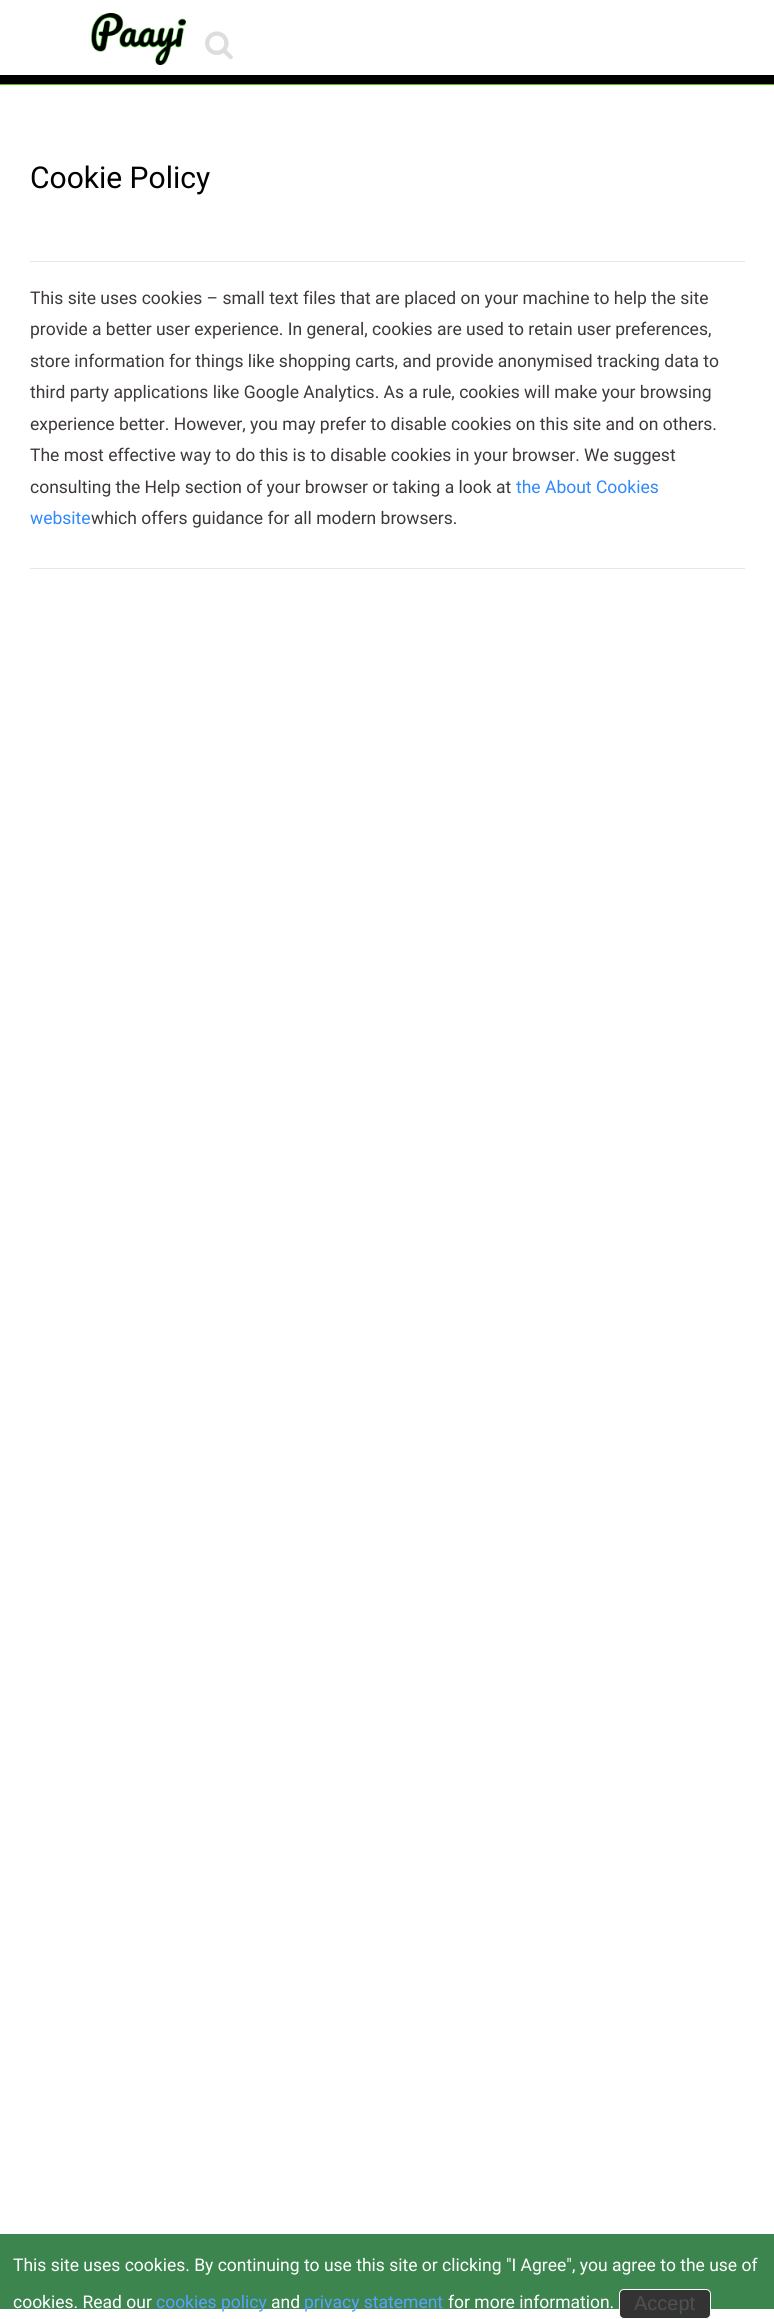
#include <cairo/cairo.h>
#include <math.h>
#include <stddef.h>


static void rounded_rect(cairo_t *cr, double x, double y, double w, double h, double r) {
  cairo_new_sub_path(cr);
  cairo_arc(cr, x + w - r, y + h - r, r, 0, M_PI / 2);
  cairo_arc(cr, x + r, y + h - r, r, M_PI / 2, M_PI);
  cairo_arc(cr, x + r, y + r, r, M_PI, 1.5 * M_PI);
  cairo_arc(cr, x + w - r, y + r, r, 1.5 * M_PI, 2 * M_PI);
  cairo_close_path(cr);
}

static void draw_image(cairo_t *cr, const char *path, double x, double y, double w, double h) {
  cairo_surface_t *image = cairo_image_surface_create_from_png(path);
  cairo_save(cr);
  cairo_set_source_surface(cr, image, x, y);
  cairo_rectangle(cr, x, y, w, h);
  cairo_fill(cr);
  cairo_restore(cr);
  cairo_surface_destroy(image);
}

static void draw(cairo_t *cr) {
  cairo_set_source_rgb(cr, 1, 1, 1);
  cairo_paint(cr);
  draw_image(cr, "images/1.png", 91, 12, 96, 54);
  draw_image(cr, "images/2.png", 205, 31, 28, 29);
  cairo_set_source_rgb(cr, 0, 0, 0);
  cairo_rectangle(cr, 0, 75, 774, 9);
  cairo_fill(cr);
  cairo_set_source_rgb(cr, 81 / 255.0, 191 / 255.0, 0);
  cairo_rectangle(cr, 0, 84, 774, 1);
  cairo_fill(cr);
  cairo_set_source_rgb(cr, 231 / 255.0, 231 / 255.0, 231 / 255.0);
  cairo_rectangle(cr, 30, 568, 715, 1);
  cairo_fill(cr);
  cairo_set_source_rgb(cr, 230 / 255.0, 230 / 255.0, 230 / 255.0);
  cairo_rectangle(cr, 30, 261, 715, 1);
  cairo_fill(cr);
  cairo_set_source_rgb(cr, 60 / 255.0, 133 / 255.0, 79 / 255.0);
  cairo_rectangle(cr, 0, 2234, 774, 75);
  cairo_fill(cr);
  cairo_set_source_rgb(cr, 51 / 255.0, 51 / 255.0, 51 / 255.0);
  rounded_rect(cr, 619.5, 2289.5, 91, 29, 4.5);
  cairo_fill_preserve(cr);
  cairo_set_source_rgb(cr, 249 / 255.0, 250 / 255.0, 251 / 255.0);
  cairo_set_line_width(cr, 1);
  cairo_stroke(cr);
  cairo_select_font_face(cr, "Roboto", CAIRO_FONT_SLANT_NORMAL, CAIRO_FONT_WEIGHT_NORMAL);
  cairo_set_font_size(cr, 30);
  cairo_set_source_rgb(cr, 0, 0, 0);
  cairo_move_to(cr, 30, 188);
  cairo_show_text(cr, "Cookie Policy");
  cairo_set_font_size(cr, 17.5);
  cairo_set_source_rgb(cr, 62 / 255.0, 57 / 255.0, 57 / 255.0);
  cairo_move_to(cr, 30, 304);
  cairo_show_text(cr, "This site uses cookies – small text files that are placed on your machine to help the site");
  cairo_move_to(cr, 30, 335);
  cairo_show_text(cr, "provide a better user experience. In general, cookies are used to retain user preferences,");
  cairo_move_to(cr, 30, 367);
  cairo_show_text(cr, "store information for things like shopping carts, and provide anonymised tracking data to");
  cairo_move_to(cr, 30, 398);
  cairo_show_text(cr, "third party applications like Google Analytics. As a rule, cookies will make your browsing");
  cairo_move_to(cr, 30, 430);
  cairo_show_text(cr, "experience better. However, you may prefer to disable cookies on this site and on others.");
  cairo_move_to(cr, 30, 461);
  cairo_show_text(cr, "The most effective way to do this is to disable cookies in your browser. We suggest");
  cairo_move_to(cr, 30, 493);
  cairo_show_text(cr, "consulting the Help section of your browser or taking a look at");
  cairo_set_source_rgb(cr, 47 / 255.0, 137 / 255.0, 252 / 255.0);
  cairo_move_to(cr, 516, 493);
  cairo_show_text(cr, "the About Cookies");
  cairo_move_to(cr, 30, 524);
  cairo_show_text(cr, "website");
  cairo_set_source_rgb(cr, 62 / 255.0, 57 / 255.0, 57 / 255.0);
  cairo_move_to(cr, 91, 524);
  cairo_show_text(cr, "which offers guidance for all modern browsers.");
  cairo_set_source_rgb(cr, 1, 1, 1);
  cairo_move_to(cr, 13, 2271);
  cairo_show_text(cr, "This site uses cookies. By continuing to use this site or clicking \"I Agree\", you agree to the use of");
  cairo_move_to(cr, 13, 2308);
  cairo_show_text(cr, "cookies. Read our");
  cairo_set_source_rgb(cr, 89 / 255.0, 161 / 255.0, 253 / 255.0);
  cairo_move_to(cr, 156, 2308);
  cairo_show_text(cr, "cookies policy");
  cairo_set_source_rgb(cr, 1, 1, 1);
  cairo_move_to(cr, 271, 2308);
  cairo_show_text(cr, "and");
  cairo_set_source_rgb(cr, 89 / 255.0, 161 / 255.0, 253 / 255.0);
  cairo_move_to(cr, 304, 2308);
  cairo_show_text(cr, "privacy statement");
  cairo_set_source_rgb(cr, 1, 1, 1);
  cairo_move_to(cr, 448, 2308);
  cairo_show_text(cr, "for more information.");
  cairo_select_font_face(cr, "Liberation Sans", CAIRO_FONT_SLANT_NORMAL, CAIRO_FONT_WEIGHT_NORMAL);
  cairo_set_font_size(cr, 20);
  cairo_set_source_rgb(cr, 77 / 255.0, 81 / 255.0, 84 / 255.0);
  cairo_move_to(cr, 634, 2310);
  cairo_show_text(cr, "Accept");
}

int main(void) {
  cairo_surface_t *surface = cairo_image_surface_create(CAIRO_FORMAT_RGB24, 774, 2319);
  cairo_t *cr = cairo_create(surface);
  cairo_font_options_t *options = cairo_font_options_create();
  cairo_font_options_set_hint_metrics(options, CAIRO_HINT_METRICS_OFF);
  cairo_font_options_set_hint_style(options, CAIRO_HINT_STYLE_NONE);
  cairo_set_font_options(cr, options);
  cairo_set_miter_limit(cr, 4);
  draw(cr);
  cairo_surface_write_to_png(surface, "out.png");
  cairo_font_options_destroy(options);
  cairo_destroy(cr);
  cairo_surface_destroy(surface);
  return 0;
}
